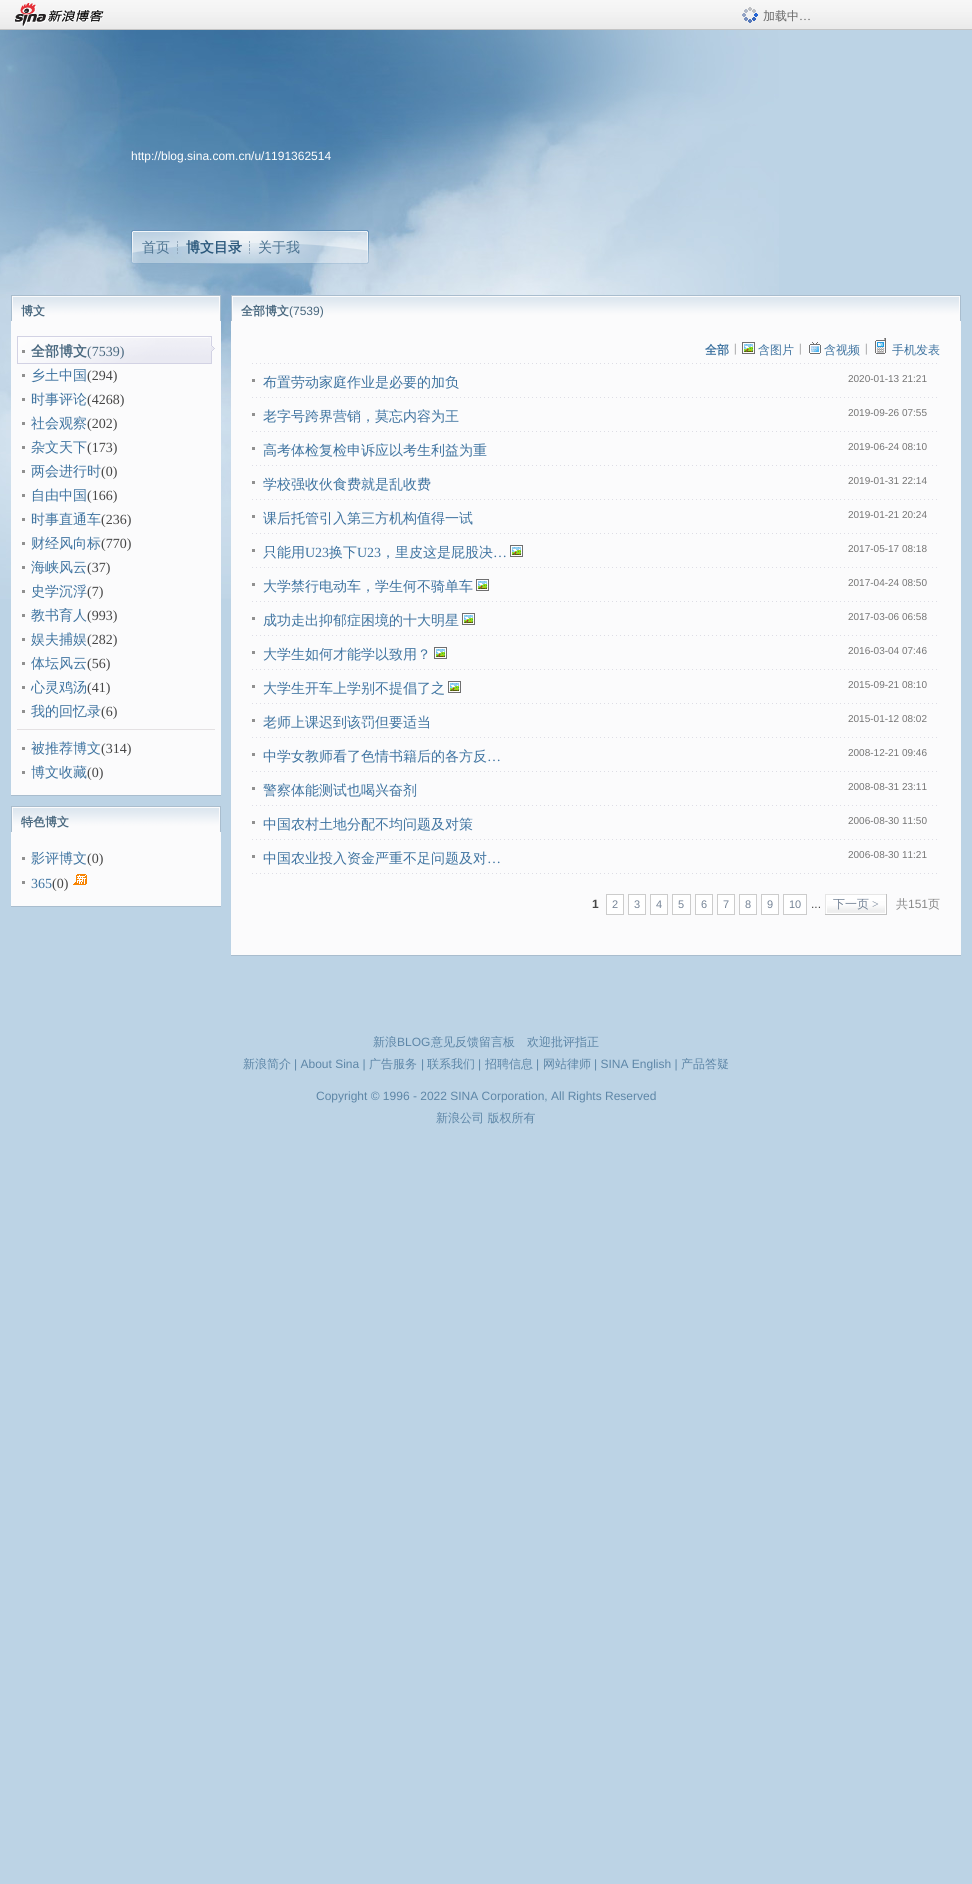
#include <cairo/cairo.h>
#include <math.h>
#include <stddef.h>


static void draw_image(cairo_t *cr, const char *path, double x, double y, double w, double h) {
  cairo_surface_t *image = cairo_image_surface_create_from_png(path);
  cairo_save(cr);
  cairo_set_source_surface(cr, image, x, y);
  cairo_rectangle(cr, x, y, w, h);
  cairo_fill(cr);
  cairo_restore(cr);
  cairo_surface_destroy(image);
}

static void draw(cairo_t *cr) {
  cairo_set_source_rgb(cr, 188 / 255.0, 211 / 255.0, 229 / 255.0);
  cairo_paint(cr);
  draw_image(cr, "images/1.png", 0, 0, 972, 30);
  draw_image(cr, "images/2.png", 15, 3, 89, 24);
  draw_image(cr, "images/3.png", 742, 7, 16, 16);
  draw_image(cr, "images/4.png", 0, 30, 779, 569);
  draw_image(cr, "images/5.png", 131, 230, 238, 34);
  draw_image(cr, "images/6.png", 177, 241, 1, 13);
  draw_image(cr, "images/7.png", 249, 241, 1, 13);
  draw_image(cr, "images/8.png", 11, 295, 210, 26);
  cairo_set_source_rgb(cr, 251 / 255.0, 251 / 255.0, 252 / 255.0);
  cairo_rectangle(cr, 11, 321, 210, 474);
  cairo_fill(cr);
  draw_image(cr, "images/9.png", 17, 336, 198, 28);
  cairo_set_source_rgb(cr, 144 / 255.0, 144 / 255.0, 144 / 255.0);
  cairo_rectangle(cr, 22, 350, 3, 3);
  cairo_fill(cr);
  cairo_set_source_rgb(cr, 210 / 255.0, 210 / 255.0, 228 / 255.0);
  cairo_rectangle(cr, 18, 363, 193, 1);
  cairo_fill(cr);
  cairo_set_source_rgb(cr, 144 / 255.0, 144 / 255.0, 144 / 255.0);
  cairo_rectangle(cr, 22, 374, 3, 3);
  cairo_fill(cr);
  cairo_rectangle(cr, 22, 398, 3, 3);
  cairo_fill(cr);
  cairo_rectangle(cr, 22, 422, 3, 3);
  cairo_fill(cr);
  cairo_rectangle(cr, 22, 446, 3, 3);
  cairo_fill(cr);
  cairo_rectangle(cr, 22, 470, 3, 3);
  cairo_fill(cr);
  cairo_rectangle(cr, 22, 494, 3, 3);
  cairo_fill(cr);
  cairo_rectangle(cr, 22, 518, 3, 3);
  cairo_fill(cr);
  cairo_rectangle(cr, 22, 542, 3, 3);
  cairo_fill(cr);
  cairo_rectangle(cr, 22, 566, 3, 3);
  cairo_fill(cr);
  cairo_rectangle(cr, 22, 590, 3, 3);
  cairo_fill(cr);
  cairo_rectangle(cr, 22, 614, 3, 3);
  cairo_fill(cr);
  cairo_rectangle(cr, 22, 638, 3, 3);
  cairo_fill(cr);
  cairo_rectangle(cr, 22, 662, 3, 3);
  cairo_fill(cr);
  cairo_rectangle(cr, 22, 686, 3, 3);
  cairo_fill(cr);
  cairo_rectangle(cr, 22, 710, 3, 3);
  cairo_fill(cr);
  cairo_set_source_rgb(cr, 228 / 255.0, 225 / 255.0, 227 / 255.0);
  cairo_rectangle(cr, 17, 729, 198, 1);
  cairo_fill(cr);
  cairo_set_source_rgb(cr, 144 / 255.0, 144 / 255.0, 144 / 255.0);
  cairo_rectangle(cr, 22, 747, 3, 3);
  cairo_fill(cr);
  cairo_rectangle(cr, 22, 771, 3, 3);
  cairo_fill(cr);
  cairo_set_source_rgb(cr, 169 / 255.0, 189 / 255.0, 206 / 255.0);
  cairo_rectangle(cr, 11, 795, 210, 1);
  cairo_fill(cr);
  draw_image(cr, "images/8.png", 11, 806, 210, 26);
  cairo_set_source_rgb(cr, 251 / 255.0, 251 / 255.0, 252 / 255.0);
  cairo_rectangle(cr, 11, 832, 210, 74);
  cairo_fill(cr);
  cairo_set_source_rgb(cr, 144 / 255.0, 144 / 255.0, 144 / 255.0);
  cairo_rectangle(cr, 22, 857, 3, 3);
  cairo_fill(cr);
  cairo_rectangle(cr, 22, 881, 3, 3);
  cairo_fill(cr);
  draw_image(cr, "images/10.png", 73, 874, 14, 11);
  cairo_set_source_rgb(cr, 169 / 255.0, 189 / 255.0, 206 / 255.0);
  cairo_rectangle(cr, 11, 906, 210, 1);
  cairo_fill(cr);
  draw_image(cr, "images/11.png", 231, 295, 730, 26);
  cairo_set_source_rgb(cr, 251 / 255.0, 251 / 255.0, 252 / 255.0);
  cairo_rectangle(cr, 231, 321, 730, 634);
  cairo_fill(cr);
  draw_image(cr, "images/12.png", 252, 363, 685, 1);
  draw_image(cr, "images/13.png", 742, 342, 13, 12);
  draw_image(cr, "images/14.png", 809, 342, 12, 12);
  draw_image(cr, "images/15.png", 875, 338, 11, 16);
  draw_image(cr, "images/12.png", 252, 397, 685, 1);
  cairo_set_source_rgb(cr, 144 / 255.0, 144 / 255.0, 144 / 255.0);
  cairo_rectangle(cr, 252, 379, 3, 3);
  cairo_fill(cr);
  draw_image(cr, "images/12.png", 252, 431, 685, 1);
  cairo_rectangle(cr, 252, 413, 3, 3);
  cairo_fill(cr);
  draw_image(cr, "images/12.png", 252, 465, 685, 1);
  cairo_rectangle(cr, 252, 447, 3, 3);
  cairo_fill(cr);
  draw_image(cr, "images/12.png", 252, 499, 685, 1);
  cairo_rectangle(cr, 252, 481, 3, 3);
  cairo_fill(cr);
  draw_image(cr, "images/12.png", 252, 533, 685, 1);
  cairo_rectangle(cr, 252, 515, 3, 3);
  cairo_fill(cr);
  draw_image(cr, "images/12.png", 252, 567, 685, 1);
  cairo_rectangle(cr, 252, 549, 3, 3);
  cairo_fill(cr);
  draw_image(cr, "images/13.png", 510, 545, 13, 12);
  draw_image(cr, "images/12.png", 252, 601, 685, 1);
  cairo_rectangle(cr, 252, 583, 3, 3);
  cairo_fill(cr);
  draw_image(cr, "images/13.png", 476, 579, 13, 12);
  draw_image(cr, "images/12.png", 252, 635, 685, 1);
  cairo_rectangle(cr, 252, 617, 3, 3);
  cairo_fill(cr);
  draw_image(cr, "images/13.png", 462, 613, 13, 12);
  draw_image(cr, "images/12.png", 252, 669, 685, 1);
  cairo_rectangle(cr, 252, 651, 3, 3);
  cairo_fill(cr);
  draw_image(cr, "images/13.png", 434, 647, 13, 12);
  draw_image(cr, "images/12.png", 252, 703, 685, 1);
  cairo_rectangle(cr, 252, 685, 3, 3);
  cairo_fill(cr);
  draw_image(cr, "images/13.png", 448, 681, 13, 12);
  draw_image(cr, "images/12.png", 252, 737, 685, 1);
  cairo_rectangle(cr, 252, 719, 3, 3);
  cairo_fill(cr);
  draw_image(cr, "images/12.png", 252, 771, 685, 1);
  cairo_rectangle(cr, 252, 753, 3, 3);
  cairo_fill(cr);
  draw_image(cr, "images/12.png", 252, 805, 685, 1);
  cairo_rectangle(cr, 252, 787, 3, 3);
  cairo_fill(cr);
  draw_image(cr, "images/12.png", 252, 839, 685, 1);
  cairo_rectangle(cr, 252, 821, 3, 3);
  cairo_fill(cr);
  draw_image(cr, "images/12.png", 252, 873, 685, 1);
  cairo_rectangle(cr, 252, 855, 3, 3);
  cairo_fill(cr);
  cairo_set_source_rgb(cr, 1, 1, 1);
  cairo_rectangle(cr, 606.5, 894.5, 17, 20);
  cairo_fill_preserve(cr);
  cairo_set_source_rgb(cr, 204 / 255.0, 204 / 255.0, 204 / 255.0);
  cairo_set_line_width(cr, 1);
  cairo_stroke(cr);
  cairo_set_source_rgb(cr, 1, 1, 1);
  cairo_rectangle(cr, 628.5, 894.5, 17, 20);
  cairo_fill_preserve(cr);
  cairo_set_source_rgb(cr, 204 / 255.0, 204 / 255.0, 204 / 255.0);
  cairo_stroke(cr);
  cairo_set_source_rgb(cr, 1, 1, 1);
  cairo_rectangle(cr, 650.5, 894.5, 17, 20);
  cairo_fill_preserve(cr);
  cairo_set_source_rgb(cr, 204 / 255.0, 204 / 255.0, 204 / 255.0);
  cairo_stroke(cr);
  cairo_set_source_rgb(cr, 1, 1, 1);
  cairo_rectangle(cr, 672.5, 894.5, 18, 20);
  cairo_fill_preserve(cr);
  cairo_set_source_rgb(cr, 204 / 255.0, 204 / 255.0, 204 / 255.0);
  cairo_stroke(cr);
  cairo_set_source_rgb(cr, 1, 1, 1);
  cairo_rectangle(cr, 695.5, 894.5, 17, 20);
  cairo_fill_preserve(cr);
  cairo_set_source_rgb(cr, 204 / 255.0, 204 / 255.0, 204 / 255.0);
  cairo_stroke(cr);
  cairo_set_source_rgb(cr, 1, 1, 1);
  cairo_rectangle(cr, 717.5, 894.5, 17, 20);
  cairo_fill_preserve(cr);
  cairo_set_source_rgb(cr, 204 / 255.0, 204 / 255.0, 204 / 255.0);
  cairo_stroke(cr);
  cairo_set_source_rgb(cr, 1, 1, 1);
  cairo_rectangle(cr, 739.5, 894.5, 17, 20);
  cairo_fill_preserve(cr);
  cairo_set_source_rgb(cr, 204 / 255.0, 204 / 255.0, 204 / 255.0);
  cairo_stroke(cr);
  cairo_set_source_rgb(cr, 1, 1, 1);
  cairo_rectangle(cr, 761.5, 894.5, 17, 20);
  cairo_fill_preserve(cr);
  cairo_set_source_rgb(cr, 204 / 255.0, 204 / 255.0, 204 / 255.0);
  cairo_stroke(cr);
  cairo_set_source_rgb(cr, 1, 1, 1);
  cairo_rectangle(cr, 783.5, 894.5, 23, 20);
  cairo_fill_preserve(cr);
  cairo_set_source_rgb(cr, 204 / 255.0, 204 / 255.0, 204 / 255.0);
  cairo_stroke(cr);
  draw_image(cr, "images/16.png", 825, 894, 62, 21);
  cairo_set_source_rgb(cr, 169 / 255.0, 189 / 255.0, 206 / 255.0);
  cairo_rectangle(cr, 231, 955, 730, 1);
  cairo_fill(cr);
  cairo_select_font_face(cr, "WenQuanYi Zen Hei Medium", CAIRO_FONT_SLANT_NORMAL, CAIRO_FONT_WEIGHT_NORMAL);
  cairo_set_font_size(cr, 12);
  cairo_set_source_rgb(cr, 102 / 255.0, 102 / 255.0, 102 / 255.0);
  cairo_move_to(cr, 763, 20);
  cairo_show_text(cr, "加载中");
  cairo_select_font_face(cr, "Liberation Serif", CAIRO_FONT_SLANT_NORMAL, CAIRO_FONT_WEIGHT_NORMAL);
  cairo_move_to(cr, 799, 20);
  cairo_show_text(cr, "…");
  cairo_select_font_face(cr, "Liberation Sans", CAIRO_FONT_SLANT_NORMAL, CAIRO_FONT_WEIGHT_NORMAL);
  cairo_set_source_rgb(cr, 1, 1, 1);
  cairo_move_to(cr, 131, 160);
  cairo_show_text(cr, "http://blog.sina.com.cn/u/1191362514");
  cairo_select_font_face(cr, "WenQuanYi Zen Hei Medium", CAIRO_FONT_SLANT_NORMAL, CAIRO_FONT_WEIGHT_NORMAL);
  cairo_set_font_size(cr, 14);
  cairo_set_source_rgb(cr, 75 / 255.0, 114 / 255.0, 144 / 255.0);
  cairo_move_to(cr, 142, 252);
  cairo_show_text(cr, "首页");
  cairo_select_font_face(cr, "WenQuanYi Zen Hei", CAIRO_FONT_SLANT_NORMAL, CAIRO_FONT_WEIGHT_BOLD);
  cairo_set_source_rgb(cr, 44 / 255.0, 89 / 255.0, 124 / 255.0);
  cairo_move_to(cr, 186, 252);
  cairo_show_text(cr, "博文目录");
  cairo_select_font_face(cr, "WenQuanYi Zen Hei Medium", CAIRO_FONT_SLANT_NORMAL, CAIRO_FONT_WEIGHT_NORMAL);
  cairo_set_source_rgb(cr, 75 / 255.0, 114 / 255.0, 144 / 255.0);
  cairo_move_to(cr, 258, 252);
  cairo_show_text(cr, "关于我");
  cairo_select_font_face(cr, "WenQuanYi Zen Hei", CAIRO_FONT_SLANT_NORMAL, CAIRO_FONT_WEIGHT_BOLD);
  cairo_set_font_size(cr, 12);
  cairo_set_source_rgb(cr, 73 / 255.0, 104 / 255.0, 127 / 255.0);
  cairo_move_to(cr, 21, 315);
  cairo_show_text(cr, "博文");
  cairo_set_font_size(cr, 14);
  cairo_move_to(cr, 31, 356);
  cairo_show_text(cr, "全部博文");
  cairo_select_font_face(cr, "Liberation Serif", CAIRO_FONT_SLANT_NORMAL, CAIRO_FONT_WEIGHT_NORMAL);
  cairo_move_to(cr, 87, 356);
  cairo_show_text(cr, "(7539)");
  cairo_select_font_face(cr, "WenQuanYi Zen Hei Medium", CAIRO_FONT_SLANT_NORMAL, CAIRO_FONT_WEIGHT_NORMAL);
  cairo_set_source_rgb(cr, 62 / 255.0, 115 / 255.0, 160 / 255.0);
  cairo_move_to(cr, 31, 380);
  cairo_show_text(cr, "乡土中国");
  cairo_select_font_face(cr, "Liberation Serif", CAIRO_FONT_SLANT_NORMAL, CAIRO_FONT_WEIGHT_NORMAL);
  cairo_set_source_rgb(cr, 70 / 255.0, 70 / 255.0, 70 / 255.0);
  cairo_move_to(cr, 87, 380);
  cairo_show_text(cr, "(294)");
  cairo_select_font_face(cr, "WenQuanYi Zen Hei Medium", CAIRO_FONT_SLANT_NORMAL, CAIRO_FONT_WEIGHT_NORMAL);
  cairo_set_source_rgb(cr, 62 / 255.0, 115 / 255.0, 160 / 255.0);
  cairo_move_to(cr, 31, 404);
  cairo_show_text(cr, "时事评论");
  cairo_select_font_face(cr, "Liberation Serif", CAIRO_FONT_SLANT_NORMAL, CAIRO_FONT_WEIGHT_NORMAL);
  cairo_set_source_rgb(cr, 70 / 255.0, 70 / 255.0, 70 / 255.0);
  cairo_move_to(cr, 87, 404);
  cairo_show_text(cr, "(4268)");
  cairo_select_font_face(cr, "WenQuanYi Zen Hei Medium", CAIRO_FONT_SLANT_NORMAL, CAIRO_FONT_WEIGHT_NORMAL);
  cairo_set_source_rgb(cr, 62 / 255.0, 115 / 255.0, 160 / 255.0);
  cairo_move_to(cr, 31, 428);
  cairo_show_text(cr, "社会观察");
  cairo_select_font_face(cr, "Liberation Serif", CAIRO_FONT_SLANT_NORMAL, CAIRO_FONT_WEIGHT_NORMAL);
  cairo_set_source_rgb(cr, 70 / 255.0, 70 / 255.0, 70 / 255.0);
  cairo_move_to(cr, 87, 428);
  cairo_show_text(cr, "(202)");
  cairo_select_font_face(cr, "WenQuanYi Zen Hei Medium", CAIRO_FONT_SLANT_NORMAL, CAIRO_FONT_WEIGHT_NORMAL);
  cairo_set_source_rgb(cr, 62 / 255.0, 115 / 255.0, 160 / 255.0);
  cairo_move_to(cr, 31, 452);
  cairo_show_text(cr, "杂文天下");
  cairo_select_font_face(cr, "Liberation Serif", CAIRO_FONT_SLANT_NORMAL, CAIRO_FONT_WEIGHT_NORMAL);
  cairo_set_source_rgb(cr, 70 / 255.0, 70 / 255.0, 70 / 255.0);
  cairo_move_to(cr, 87, 452);
  cairo_show_text(cr, "(173)");
  cairo_select_font_face(cr, "WenQuanYi Zen Hei Medium", CAIRO_FONT_SLANT_NORMAL, CAIRO_FONT_WEIGHT_NORMAL);
  cairo_set_source_rgb(cr, 62 / 255.0, 115 / 255.0, 160 / 255.0);
  cairo_move_to(cr, 31, 476);
  cairo_show_text(cr, "两会进行时");
  cairo_select_font_face(cr, "Liberation Serif", CAIRO_FONT_SLANT_NORMAL, CAIRO_FONT_WEIGHT_NORMAL);
  cairo_set_source_rgb(cr, 70 / 255.0, 70 / 255.0, 70 / 255.0);
  cairo_move_to(cr, 101, 476);
  cairo_show_text(cr, "(0)");
  cairo_select_font_face(cr, "WenQuanYi Zen Hei Medium", CAIRO_FONT_SLANT_NORMAL, CAIRO_FONT_WEIGHT_NORMAL);
  cairo_set_source_rgb(cr, 62 / 255.0, 115 / 255.0, 160 / 255.0);
  cairo_move_to(cr, 31, 500);
  cairo_show_text(cr, "自由中国");
  cairo_select_font_face(cr, "Liberation Serif", CAIRO_FONT_SLANT_NORMAL, CAIRO_FONT_WEIGHT_NORMAL);
  cairo_set_source_rgb(cr, 70 / 255.0, 70 / 255.0, 70 / 255.0);
  cairo_move_to(cr, 87, 500);
  cairo_show_text(cr, "(166)");
  cairo_select_font_face(cr, "WenQuanYi Zen Hei Medium", CAIRO_FONT_SLANT_NORMAL, CAIRO_FONT_WEIGHT_NORMAL);
  cairo_set_source_rgb(cr, 62 / 255.0, 115 / 255.0, 160 / 255.0);
  cairo_move_to(cr, 31, 524);
  cairo_show_text(cr, "时事直通车");
  cairo_select_font_face(cr, "Liberation Serif", CAIRO_FONT_SLANT_NORMAL, CAIRO_FONT_WEIGHT_NORMAL);
  cairo_set_source_rgb(cr, 70 / 255.0, 70 / 255.0, 70 / 255.0);
  cairo_move_to(cr, 101, 524);
  cairo_show_text(cr, "(236)");
  cairo_select_font_face(cr, "WenQuanYi Zen Hei Medium", CAIRO_FONT_SLANT_NORMAL, CAIRO_FONT_WEIGHT_NORMAL);
  cairo_set_source_rgb(cr, 62 / 255.0, 115 / 255.0, 160 / 255.0);
  cairo_move_to(cr, 31, 548);
  cairo_show_text(cr, "财经风向标");
  cairo_select_font_face(cr, "Liberation Serif", CAIRO_FONT_SLANT_NORMAL, CAIRO_FONT_WEIGHT_NORMAL);
  cairo_set_source_rgb(cr, 70 / 255.0, 70 / 255.0, 70 / 255.0);
  cairo_move_to(cr, 101, 548);
  cairo_show_text(cr, "(770)");
  cairo_select_font_face(cr, "WenQuanYi Zen Hei Medium", CAIRO_FONT_SLANT_NORMAL, CAIRO_FONT_WEIGHT_NORMAL);
  cairo_set_source_rgb(cr, 62 / 255.0, 115 / 255.0, 160 / 255.0);
  cairo_move_to(cr, 31, 572);
  cairo_show_text(cr, "海峡风云");
  cairo_select_font_face(cr, "Liberation Serif", CAIRO_FONT_SLANT_NORMAL, CAIRO_FONT_WEIGHT_NORMAL);
  cairo_set_source_rgb(cr, 70 / 255.0, 70 / 255.0, 70 / 255.0);
  cairo_move_to(cr, 87, 572);
  cairo_show_text(cr, "(37)");
  cairo_select_font_face(cr, "WenQuanYi Zen Hei Medium", CAIRO_FONT_SLANT_NORMAL, CAIRO_FONT_WEIGHT_NORMAL);
  cairo_set_source_rgb(cr, 62 / 255.0, 115 / 255.0, 160 / 255.0);
  cairo_move_to(cr, 31, 596);
  cairo_show_text(cr, "史学沉浮");
  cairo_select_font_face(cr, "Liberation Serif", CAIRO_FONT_SLANT_NORMAL, CAIRO_FONT_WEIGHT_NORMAL);
  cairo_set_source_rgb(cr, 70 / 255.0, 70 / 255.0, 70 / 255.0);
  cairo_move_to(cr, 87, 596);
  cairo_show_text(cr, "(7)");
  cairo_select_font_face(cr, "WenQuanYi Zen Hei Medium", CAIRO_FONT_SLANT_NORMAL, CAIRO_FONT_WEIGHT_NORMAL);
  cairo_set_source_rgb(cr, 62 / 255.0, 115 / 255.0, 160 / 255.0);
  cairo_move_to(cr, 31, 620);
  cairo_show_text(cr, "教书育人");
  cairo_select_font_face(cr, "Liberation Serif", CAIRO_FONT_SLANT_NORMAL, CAIRO_FONT_WEIGHT_NORMAL);
  cairo_set_source_rgb(cr, 70 / 255.0, 70 / 255.0, 70 / 255.0);
  cairo_move_to(cr, 87, 620);
  cairo_show_text(cr, "(993)");
  cairo_select_font_face(cr, "WenQuanYi Zen Hei Medium", CAIRO_FONT_SLANT_NORMAL, CAIRO_FONT_WEIGHT_NORMAL);
  cairo_set_source_rgb(cr, 62 / 255.0, 115 / 255.0, 160 / 255.0);
  cairo_move_to(cr, 31, 644);
  cairo_show_text(cr, "娱夫捕娱");
  cairo_select_font_face(cr, "Liberation Serif", CAIRO_FONT_SLANT_NORMAL, CAIRO_FONT_WEIGHT_NORMAL);
  cairo_set_source_rgb(cr, 70 / 255.0, 70 / 255.0, 70 / 255.0);
  cairo_move_to(cr, 87, 644);
  cairo_show_text(cr, "(282)");
  cairo_select_font_face(cr, "WenQuanYi Zen Hei Medium", CAIRO_FONT_SLANT_NORMAL, CAIRO_FONT_WEIGHT_NORMAL);
  cairo_set_source_rgb(cr, 62 / 255.0, 115 / 255.0, 160 / 255.0);
  cairo_move_to(cr, 31, 668);
  cairo_show_text(cr, "体坛风云");
  cairo_select_font_face(cr, "Liberation Serif", CAIRO_FONT_SLANT_NORMAL, CAIRO_FONT_WEIGHT_NORMAL);
  cairo_set_source_rgb(cr, 70 / 255.0, 70 / 255.0, 70 / 255.0);
  cairo_move_to(cr, 87, 668);
  cairo_show_text(cr, "(56)");
  cairo_select_font_face(cr, "WenQuanYi Zen Hei Medium", CAIRO_FONT_SLANT_NORMAL, CAIRO_FONT_WEIGHT_NORMAL);
  cairo_set_source_rgb(cr, 62 / 255.0, 115 / 255.0, 160 / 255.0);
  cairo_move_to(cr, 31, 692);
  cairo_show_text(cr, "心灵鸡汤");
  cairo_select_font_face(cr, "Liberation Serif", CAIRO_FONT_SLANT_NORMAL, CAIRO_FONT_WEIGHT_NORMAL);
  cairo_set_source_rgb(cr, 70 / 255.0, 70 / 255.0, 70 / 255.0);
  cairo_move_to(cr, 87, 692);
  cairo_show_text(cr, "(41)");
  cairo_select_font_face(cr, "WenQuanYi Zen Hei Medium", CAIRO_FONT_SLANT_NORMAL, CAIRO_FONT_WEIGHT_NORMAL);
  cairo_set_source_rgb(cr, 62 / 255.0, 115 / 255.0, 160 / 255.0);
  cairo_move_to(cr, 31, 716);
  cairo_show_text(cr, "我的回忆录");
  cairo_select_font_face(cr, "Liberation Serif", CAIRO_FONT_SLANT_NORMAL, CAIRO_FONT_WEIGHT_NORMAL);
  cairo_set_source_rgb(cr, 70 / 255.0, 70 / 255.0, 70 / 255.0);
  cairo_move_to(cr, 101, 716);
  cairo_show_text(cr, "(6)");
  cairo_select_font_face(cr, "WenQuanYi Zen Hei Medium", CAIRO_FONT_SLANT_NORMAL, CAIRO_FONT_WEIGHT_NORMAL);
  cairo_set_source_rgb(cr, 62 / 255.0, 115 / 255.0, 160 / 255.0);
  cairo_move_to(cr, 31, 753);
  cairo_show_text(cr, "被推荐博文");
  cairo_select_font_face(cr, "Liberation Serif", CAIRO_FONT_SLANT_NORMAL, CAIRO_FONT_WEIGHT_NORMAL);
  cairo_set_source_rgb(cr, 70 / 255.0, 70 / 255.0, 70 / 255.0);
  cairo_move_to(cr, 101, 753);
  cairo_show_text(cr, "(314)");
  cairo_select_font_face(cr, "WenQuanYi Zen Hei Medium", CAIRO_FONT_SLANT_NORMAL, CAIRO_FONT_WEIGHT_NORMAL);
  cairo_set_source_rgb(cr, 62 / 255.0, 115 / 255.0, 160 / 255.0);
  cairo_move_to(cr, 31, 777);
  cairo_show_text(cr, "博文收藏");
  cairo_select_font_face(cr, "Liberation Serif", CAIRO_FONT_SLANT_NORMAL, CAIRO_FONT_WEIGHT_NORMAL);
  cairo_set_source_rgb(cr, 70 / 255.0, 70 / 255.0, 70 / 255.0);
  cairo_move_to(cr, 87, 777);
  cairo_show_text(cr, "(0)");
  cairo_select_font_face(cr, "WenQuanYi Zen Hei", CAIRO_FONT_SLANT_NORMAL, CAIRO_FONT_WEIGHT_BOLD);
  cairo_set_font_size(cr, 12);
  cairo_set_source_rgb(cr, 73 / 255.0, 104 / 255.0, 127 / 255.0);
  cairo_move_to(cr, 21, 826);
  cairo_show_text(cr, "特色博文");
  cairo_select_font_face(cr, "WenQuanYi Zen Hei Medium", CAIRO_FONT_SLANT_NORMAL, CAIRO_FONT_WEIGHT_NORMAL);
  cairo_set_font_size(cr, 14);
  cairo_set_source_rgb(cr, 62 / 255.0, 115 / 255.0, 160 / 255.0);
  cairo_move_to(cr, 31, 863);
  cairo_show_text(cr, "影评博文");
  cairo_select_font_face(cr, "Liberation Serif", CAIRO_FONT_SLANT_NORMAL, CAIRO_FONT_WEIGHT_NORMAL);
  cairo_set_source_rgb(cr, 70 / 255.0, 70 / 255.0, 70 / 255.0);
  cairo_move_to(cr, 87, 863);
  cairo_show_text(cr, "(0)");
  cairo_set_source_rgb(cr, 62 / 255.0, 115 / 255.0, 160 / 255.0);
  cairo_move_to(cr, 31, 888);
  cairo_show_text(cr, "365");
  cairo_set_source_rgb(cr, 70 / 255.0, 70 / 255.0, 70 / 255.0);
  cairo_move_to(cr, 52, 888);
  cairo_show_text(cr, "(0)");
  cairo_select_font_face(cr, "WenQuanYi Zen Hei", CAIRO_FONT_SLANT_NORMAL, CAIRO_FONT_WEIGHT_BOLD);
  cairo_set_font_size(cr, 12);
  cairo_set_source_rgb(cr, 73 / 255.0, 104 / 255.0, 127 / 255.0);
  cairo_move_to(cr, 241, 315);
  cairo_show_text(cr, "全部博文");
  cairo_select_font_face(cr, "Liberation Sans", CAIRO_FONT_SLANT_NORMAL, CAIRO_FONT_WEIGHT_NORMAL);
  cairo_move_to(cr, 289, 315);
  cairo_show_text(cr, "(7539)");
  cairo_select_font_face(cr, "WenQuanYi Zen Hei", CAIRO_FONT_SLANT_NORMAL, CAIRO_FONT_WEIGHT_BOLD);
  cairo_set_source_rgb(cr, 62 / 255.0, 115 / 255.0, 160 / 255.0);
  cairo_move_to(cr, 705, 354);
  cairo_show_text(cr, "全部");
  cairo_select_font_face(cr, "Liberation Serif", CAIRO_FONT_SLANT_NORMAL, CAIRO_FONT_WEIGHT_NORMAL);
  cairo_set_source_rgb(cr, 116 / 255.0, 116 / 255.0, 116 / 255.0);
  cairo_move_to(cr, 734, 352);
  cairo_show_text(cr, "|");
  cairo_select_font_face(cr, "WenQuanYi Zen Hei Medium", CAIRO_FONT_SLANT_NORMAL, CAIRO_FONT_WEIGHT_NORMAL);
  cairo_set_source_rgb(cr, 62 / 255.0, 115 / 255.0, 160 / 255.0);
  cairo_move_to(cr, 758, 354);
  cairo_show_text(cr, "含图片");
  cairo_select_font_face(cr, "Liberation Serif", CAIRO_FONT_SLANT_NORMAL, CAIRO_FONT_WEIGHT_NORMAL);
  cairo_set_source_rgb(cr, 116 / 255.0, 116 / 255.0, 116 / 255.0);
  cairo_move_to(cr, 799, 352);
  cairo_show_text(cr, "|");
  cairo_select_font_face(cr, "WenQuanYi Zen Hei Medium", CAIRO_FONT_SLANT_NORMAL, CAIRO_FONT_WEIGHT_NORMAL);
  cairo_set_source_rgb(cr, 62 / 255.0, 115 / 255.0, 160 / 255.0);
  cairo_move_to(cr, 824, 354);
  cairo_show_text(cr, "含视频");
  cairo_select_font_face(cr, "Liberation Serif", CAIRO_FONT_SLANT_NORMAL, CAIRO_FONT_WEIGHT_NORMAL);
  cairo_set_source_rgb(cr, 116 / 255.0, 116 / 255.0, 116 / 255.0);
  cairo_move_to(cr, 865, 352);
  cairo_show_text(cr, "|");
  cairo_select_font_face(cr, "WenQuanYi Zen Hei Medium", CAIRO_FONT_SLANT_NORMAL, CAIRO_FONT_WEIGHT_NORMAL);
  cairo_set_source_rgb(cr, 62 / 255.0, 115 / 255.0, 160 / 255.0);
  cairo_move_to(cr, 892, 354);
  cairo_show_text(cr, "手机发表");
  cairo_set_font_size(cr, 14);
  cairo_move_to(cr, 263, 387);
  cairo_show_text(cr, "布置劳动家庭作业是必要的加负");
  cairo_select_font_face(cr, "Liberation Sans", CAIRO_FONT_SLANT_NORMAL, CAIRO_FONT_WEIGHT_NORMAL);
  cairo_set_font_size(cr, 10);
  cairo_set_source_rgb(cr, 116 / 255.0, 116 / 255.0, 116 / 255.0);
  cairo_move_to(cr, 848, 382);
  cairo_show_text(cr, "2020-01-13 21:21");
  cairo_select_font_face(cr, "WenQuanYi Zen Hei Medium", CAIRO_FONT_SLANT_NORMAL, CAIRO_FONT_WEIGHT_NORMAL);
  cairo_set_font_size(cr, 14);
  cairo_set_source_rgb(cr, 62 / 255.0, 115 / 255.0, 160 / 255.0);
  cairo_move_to(cr, 263, 421);
  cairo_show_text(cr, "老字号跨界营销，莫忘内容为王");
  cairo_select_font_face(cr, "Liberation Sans", CAIRO_FONT_SLANT_NORMAL, CAIRO_FONT_WEIGHT_NORMAL);
  cairo_set_font_size(cr, 10);
  cairo_set_source_rgb(cr, 116 / 255.0, 116 / 255.0, 116 / 255.0);
  cairo_move_to(cr, 848, 416);
  cairo_show_text(cr, "2019-09-26 07:55");
  cairo_select_font_face(cr, "WenQuanYi Zen Hei Medium", CAIRO_FONT_SLANT_NORMAL, CAIRO_FONT_WEIGHT_NORMAL);
  cairo_set_font_size(cr, 14);
  cairo_set_source_rgb(cr, 62 / 255.0, 115 / 255.0, 160 / 255.0);
  cairo_move_to(cr, 263, 455);
  cairo_show_text(cr, "高考体检复检申诉应以考生利益为重");
  cairo_select_font_face(cr, "Liberation Sans", CAIRO_FONT_SLANT_NORMAL, CAIRO_FONT_WEIGHT_NORMAL);
  cairo_set_font_size(cr, 10);
  cairo_set_source_rgb(cr, 116 / 255.0, 116 / 255.0, 116 / 255.0);
  cairo_move_to(cr, 848, 450);
  cairo_show_text(cr, "2019-06-24 08:10");
  cairo_select_font_face(cr, "WenQuanYi Zen Hei Medium", CAIRO_FONT_SLANT_NORMAL, CAIRO_FONT_WEIGHT_NORMAL);
  cairo_set_font_size(cr, 14);
  cairo_set_source_rgb(cr, 62 / 255.0, 115 / 255.0, 160 / 255.0);
  cairo_move_to(cr, 263, 489);
  cairo_show_text(cr, "学校强收伙食费就是乱收费");
  cairo_select_font_face(cr, "Liberation Sans", CAIRO_FONT_SLANT_NORMAL, CAIRO_FONT_WEIGHT_NORMAL);
  cairo_set_font_size(cr, 10);
  cairo_set_source_rgb(cr, 116 / 255.0, 116 / 255.0, 116 / 255.0);
  cairo_move_to(cr, 848, 484);
  cairo_show_text(cr, "2019-01-31 22:14");
  cairo_select_font_face(cr, "WenQuanYi Zen Hei Medium", CAIRO_FONT_SLANT_NORMAL, CAIRO_FONT_WEIGHT_NORMAL);
  cairo_set_font_size(cr, 14);
  cairo_set_source_rgb(cr, 62 / 255.0, 115 / 255.0, 160 / 255.0);
  cairo_move_to(cr, 263, 523);
  cairo_show_text(cr, "课后托管引入第三方机构值得一试");
  cairo_select_font_face(cr, "Liberation Sans", CAIRO_FONT_SLANT_NORMAL, CAIRO_FONT_WEIGHT_NORMAL);
  cairo_set_font_size(cr, 10);
  cairo_set_source_rgb(cr, 116 / 255.0, 116 / 255.0, 116 / 255.0);
  cairo_move_to(cr, 848, 518);
  cairo_show_text(cr, "2019-01-21 20:24");
  cairo_select_font_face(cr, "WenQuanYi Zen Hei Medium", CAIRO_FONT_SLANT_NORMAL, CAIRO_FONT_WEIGHT_NORMAL);
  cairo_set_font_size(cr, 14);
  cairo_set_source_rgb(cr, 62 / 255.0, 115 / 255.0, 160 / 255.0);
  cairo_move_to(cr, 263, 557);
  cairo_show_text(cr, "只能用");
  cairo_select_font_face(cr, "Liberation Serif", CAIRO_FONT_SLANT_NORMAL, CAIRO_FONT_WEIGHT_NORMAL);
  cairo_move_to(cr, 305, 557);
  cairo_show_text(cr, "U23");
  cairo_select_font_face(cr, "WenQuanYi Zen Hei Medium", CAIRO_FONT_SLANT_NORMAL, CAIRO_FONT_WEIGHT_NORMAL);
  cairo_move_to(cr, 329, 557);
  cairo_show_text(cr, "换下");
  cairo_select_font_face(cr, "Liberation Serif", CAIRO_FONT_SLANT_NORMAL, CAIRO_FONT_WEIGHT_NORMAL);
  cairo_move_to(cr, 357, 557);
  cairo_show_text(cr, "U23");
  cairo_select_font_face(cr, "WenQuanYi Zen Hei Medium", CAIRO_FONT_SLANT_NORMAL, CAIRO_FONT_WEIGHT_NORMAL);
  cairo_move_to(cr, 381, 557);
  cairo_show_text(cr, "，里皮这是屁股决");
  cairo_select_font_face(cr, "Liberation Serif", CAIRO_FONT_SLANT_NORMAL, CAIRO_FONT_WEIGHT_NORMAL);
  cairo_move_to(cr, 493, 557);
  cairo_show_text(cr, "…");
  cairo_select_font_face(cr, "Liberation Sans", CAIRO_FONT_SLANT_NORMAL, CAIRO_FONT_WEIGHT_NORMAL);
  cairo_set_font_size(cr, 10);
  cairo_set_source_rgb(cr, 116 / 255.0, 116 / 255.0, 116 / 255.0);
  cairo_move_to(cr, 848, 552);
  cairo_show_text(cr, "2017-05-17 08:18");
  cairo_select_font_face(cr, "WenQuanYi Zen Hei Medium", CAIRO_FONT_SLANT_NORMAL, CAIRO_FONT_WEIGHT_NORMAL);
  cairo_set_font_size(cr, 14);
  cairo_set_source_rgb(cr, 62 / 255.0, 115 / 255.0, 160 / 255.0);
  cairo_move_to(cr, 263, 591);
  cairo_show_text(cr, "大学禁行电动车，学生何不骑单车");
  cairo_select_font_face(cr, "Liberation Sans", CAIRO_FONT_SLANT_NORMAL, CAIRO_FONT_WEIGHT_NORMAL);
  cairo_set_font_size(cr, 10);
  cairo_set_source_rgb(cr, 116 / 255.0, 116 / 255.0, 116 / 255.0);
  cairo_move_to(cr, 848, 586);
  cairo_show_text(cr, "2017-04-24 08:50");
  cairo_select_font_face(cr, "WenQuanYi Zen Hei Medium", CAIRO_FONT_SLANT_NORMAL, CAIRO_FONT_WEIGHT_NORMAL);
  cairo_set_font_size(cr, 14);
  cairo_set_source_rgb(cr, 62 / 255.0, 115 / 255.0, 160 / 255.0);
  cairo_move_to(cr, 263, 625);
  cairo_show_text(cr, "成功走出抑郁症困境的十大明星");
  cairo_select_font_face(cr, "Liberation Sans", CAIRO_FONT_SLANT_NORMAL, CAIRO_FONT_WEIGHT_NORMAL);
  cairo_set_font_size(cr, 10);
  cairo_set_source_rgb(cr, 116 / 255.0, 116 / 255.0, 116 / 255.0);
  cairo_move_to(cr, 848, 620);
  cairo_show_text(cr, "2017-03-06 06:58");
  cairo_select_font_face(cr, "WenQuanYi Zen Hei Medium", CAIRO_FONT_SLANT_NORMAL, CAIRO_FONT_WEIGHT_NORMAL);
  cairo_set_font_size(cr, 14);
  cairo_set_source_rgb(cr, 62 / 255.0, 115 / 255.0, 160 / 255.0);
  cairo_move_to(cr, 263, 659);
  cairo_show_text(cr, "大学生如何才能学以致用？");
  cairo_select_font_face(cr, "Liberation Sans", CAIRO_FONT_SLANT_NORMAL, CAIRO_FONT_WEIGHT_NORMAL);
  cairo_set_font_size(cr, 10);
  cairo_set_source_rgb(cr, 116 / 255.0, 116 / 255.0, 116 / 255.0);
  cairo_move_to(cr, 848, 654);
  cairo_show_text(cr, "2016-03-04 07:46");
  cairo_select_font_face(cr, "WenQuanYi Zen Hei Medium", CAIRO_FONT_SLANT_NORMAL, CAIRO_FONT_WEIGHT_NORMAL);
  cairo_set_font_size(cr, 14);
  cairo_set_source_rgb(cr, 62 / 255.0, 115 / 255.0, 160 / 255.0);
  cairo_move_to(cr, 263, 693);
  cairo_show_text(cr, "大学生开车上学别不提倡了之");
  cairo_select_font_face(cr, "Liberation Sans", CAIRO_FONT_SLANT_NORMAL, CAIRO_FONT_WEIGHT_NORMAL);
  cairo_set_font_size(cr, 10);
  cairo_set_source_rgb(cr, 116 / 255.0, 116 / 255.0, 116 / 255.0);
  cairo_move_to(cr, 848, 688);
  cairo_show_text(cr, "2015-09-21 08:10");
  cairo_select_font_face(cr, "WenQuanYi Zen Hei Medium", CAIRO_FONT_SLANT_NORMAL, CAIRO_FONT_WEIGHT_NORMAL);
  cairo_set_font_size(cr, 14);
  cairo_set_source_rgb(cr, 62 / 255.0, 115 / 255.0, 160 / 255.0);
  cairo_move_to(cr, 263, 727);
  cairo_show_text(cr, "老师上课迟到该罚但要适当");
  cairo_select_font_face(cr, "Liberation Sans", CAIRO_FONT_SLANT_NORMAL, CAIRO_FONT_WEIGHT_NORMAL);
  cairo_set_font_size(cr, 10);
  cairo_set_source_rgb(cr, 116 / 255.0, 116 / 255.0, 116 / 255.0);
  cairo_move_to(cr, 848, 722);
  cairo_show_text(cr, "2015-01-12 08:02");
  cairo_select_font_face(cr, "WenQuanYi Zen Hei Medium", CAIRO_FONT_SLANT_NORMAL, CAIRO_FONT_WEIGHT_NORMAL);
  cairo_set_font_size(cr, 14);
  cairo_set_source_rgb(cr, 62 / 255.0, 115 / 255.0, 160 / 255.0);
  cairo_move_to(cr, 263, 761);
  cairo_show_text(cr, "中学女教师看了色情书籍后的各方反");
  cairo_select_font_face(cr, "Liberation Serif", CAIRO_FONT_SLANT_NORMAL, CAIRO_FONT_WEIGHT_NORMAL);
  cairo_move_to(cr, 487, 761);
  cairo_show_text(cr, "…");
  cairo_select_font_face(cr, "Liberation Sans", CAIRO_FONT_SLANT_NORMAL, CAIRO_FONT_WEIGHT_NORMAL);
  cairo_set_font_size(cr, 10);
  cairo_set_source_rgb(cr, 116 / 255.0, 116 / 255.0, 116 / 255.0);
  cairo_move_to(cr, 848, 756);
  cairo_show_text(cr, "2008-12-21 09:46");
  cairo_select_font_face(cr, "WenQuanYi Zen Hei Medium", CAIRO_FONT_SLANT_NORMAL, CAIRO_FONT_WEIGHT_NORMAL);
  cairo_set_font_size(cr, 14);
  cairo_set_source_rgb(cr, 62 / 255.0, 115 / 255.0, 160 / 255.0);
  cairo_move_to(cr, 263, 795);
  cairo_show_text(cr, "警察体能测试也喝兴奋剂");
  cairo_select_font_face(cr, "Liberation Sans", CAIRO_FONT_SLANT_NORMAL, CAIRO_FONT_WEIGHT_NORMAL);
  cairo_set_font_size(cr, 10);
  cairo_set_source_rgb(cr, 116 / 255.0, 116 / 255.0, 116 / 255.0);
  cairo_move_to(cr, 848, 790);
  cairo_show_text(cr, "2008-08-31 23:11");
  cairo_select_font_face(cr, "WenQuanYi Zen Hei Medium", CAIRO_FONT_SLANT_NORMAL, CAIRO_FONT_WEIGHT_NORMAL);
  cairo_set_font_size(cr, 14);
  cairo_set_source_rgb(cr, 62 / 255.0, 115 / 255.0, 160 / 255.0);
  cairo_move_to(cr, 263, 829);
  cairo_show_text(cr, "中国农村土地分配不均问题及对策");
  cairo_select_font_face(cr, "Liberation Sans", CAIRO_FONT_SLANT_NORMAL, CAIRO_FONT_WEIGHT_NORMAL);
  cairo_set_font_size(cr, 10);
  cairo_set_source_rgb(cr, 116 / 255.0, 116 / 255.0, 116 / 255.0);
  cairo_move_to(cr, 848, 824);
  cairo_show_text(cr, "2006-08-30 11:50");
  cairo_select_font_face(cr, "WenQuanYi Zen Hei Medium", CAIRO_FONT_SLANT_NORMAL, CAIRO_FONT_WEIGHT_NORMAL);
  cairo_set_font_size(cr, 14);
  cairo_set_source_rgb(cr, 62 / 255.0, 115 / 255.0, 160 / 255.0);
  cairo_move_to(cr, 263, 863);
  cairo_show_text(cr, "中国农业投入资金严重不足问题及对");
  cairo_select_font_face(cr, "Liberation Serif", CAIRO_FONT_SLANT_NORMAL, CAIRO_FONT_WEIGHT_NORMAL);
  cairo_move_to(cr, 487, 863);
  cairo_show_text(cr, "…");
  cairo_select_font_face(cr, "Liberation Sans", CAIRO_FONT_SLANT_NORMAL, CAIRO_FONT_WEIGHT_NORMAL);
  cairo_set_font_size(cr, 10);
  cairo_set_source_rgb(cr, 116 / 255.0, 116 / 255.0, 116 / 255.0);
  cairo_move_to(cr, 848, 858);
  cairo_show_text(cr, "2006-08-30 11:21");
  cairo_select_font_face(cr, "Liberation Sans", CAIRO_FONT_SLANT_NORMAL, CAIRO_FONT_WEIGHT_BOLD);
  cairo_set_font_size(cr, 12);
  cairo_set_source_rgb(cr, 70 / 255.0, 70 / 255.0, 70 / 255.0);
  cairo_move_to(cr, 592, 908);
  cairo_show_text(cr, "1");
  cairo_select_font_face(cr, "Liberation Sans", CAIRO_FONT_SLANT_NORMAL, CAIRO_FONT_WEIGHT_NORMAL);
  cairo_set_font_size(cr, 11);
  cairo_set_source_rgb(cr, 116 / 255.0, 131 / 255.0, 150 / 255.0);
  cairo_move_to(cr, 612, 908);
  cairo_show_text(cr, "2");
  cairo_move_to(cr, 634, 908);
  cairo_show_text(cr, "3");
  cairo_move_to(cr, 656, 908);
  cairo_show_text(cr, "4");
  cairo_move_to(cr, 678, 908);
  cairo_show_text(cr, "5");
  cairo_move_to(cr, 701, 908);
  cairo_show_text(cr, "6");
  cairo_move_to(cr, 723, 908);
  cairo_show_text(cr, "7");
  cairo_move_to(cr, 745, 908);
  cairo_show_text(cr, "8");
  cairo_move_to(cr, 767, 908);
  cairo_show_text(cr, "9");
  cairo_move_to(cr, 789, 908);
  cairo_show_text(cr, "10");
  cairo_set_font_size(cr, 12);
  cairo_set_source_rgb(cr, 70 / 255.0, 70 / 255.0, 70 / 255.0);
  cairo_move_to(cr, 811, 908);
  cairo_show_text(cr, "...");
  cairo_select_font_face(cr, "WenQuanYi Zen Hei Medium", CAIRO_FONT_SLANT_NORMAL, CAIRO_FONT_WEIGHT_NORMAL);
  cairo_set_source_rgb(cr, 116 / 255.0, 131 / 255.0, 150 / 255.0);
  cairo_move_to(cr, 833, 908);
  cairo_show_text(cr, "下一页");
  cairo_select_font_face(cr, "Liberation Serif", CAIRO_FONT_SLANT_NORMAL, CAIRO_FONT_WEIGHT_NORMAL);
  cairo_move_to(cr, 872, 908);
  cairo_show_text(cr, ">");
  cairo_select_font_face(cr, "WenQuanYi Zen Hei Medium", CAIRO_FONT_SLANT_NORMAL, CAIRO_FONT_WEIGHT_NORMAL);
  cairo_set_source_rgb(cr, 136 / 255.0, 136 / 255.0, 136 / 255.0);
  cairo_move_to(cr, 896, 908);
  cairo_show_text(cr, "共");
  cairo_select_font_face(cr, "Liberation Sans", CAIRO_FONT_SLANT_NORMAL, CAIRO_FONT_WEIGHT_NORMAL);
  cairo_move_to(cr, 908, 908);
  cairo_show_text(cr, "151");
  cairo_select_font_face(cr, "WenQuanYi Zen Hei Medium", CAIRO_FONT_SLANT_NORMAL, CAIRO_FONT_WEIGHT_NORMAL);
  cairo_move_to(cr, 928, 908);
  cairo_show_text(cr, "页");
  cairo_set_source_rgb(cr, 93 / 255.0, 134 / 255.0, 167 / 255.0);
  cairo_move_to(cr, 373, 1046);
  cairo_show_text(cr, "新浪");
  cairo_select_font_face(cr, "Liberation Sans", CAIRO_FONT_SLANT_NORMAL, CAIRO_FONT_WEIGHT_NORMAL);
  cairo_move_to(cr, 397, 1046);
  cairo_show_text(cr, "BLOG");
  cairo_select_font_face(cr, "WenQuanYi Zen Hei Medium", CAIRO_FONT_SLANT_NORMAL, CAIRO_FONT_WEIGHT_NORMAL);
  cairo_move_to(cr, 431, 1046);
  cairo_show_text(cr, "意见反馈留言板");
  cairo_move_to(cr, 527, 1046);
  cairo_show_text(cr, "欢迎批评指正");
  cairo_move_to(cr, 243, 1068);
  cairo_show_text(cr, "新浪简介");
  cairo_select_font_face(cr, "Liberation Sans", CAIRO_FONT_SLANT_NORMAL, CAIRO_FONT_WEIGHT_NORMAL);
  cairo_move_to(cr, 294, 1068);
  cairo_show_text(cr, "| About Sina |");
  cairo_select_font_face(cr, "WenQuanYi Zen Hei Medium", CAIRO_FONT_SLANT_NORMAL, CAIRO_FONT_WEIGHT_NORMAL);
  cairo_move_to(cr, 369, 1068);
  cairo_show_text(cr, "广告服务");
  cairo_select_font_face(cr, "Liberation Sans", CAIRO_FONT_SLANT_NORMAL, CAIRO_FONT_WEIGHT_NORMAL);
  cairo_move_to(cr, 421, 1068);
  cairo_show_text(cr, "|");
  cairo_select_font_face(cr, "WenQuanYi Zen Hei Medium", CAIRO_FONT_SLANT_NORMAL, CAIRO_FONT_WEIGHT_NORMAL);
  cairo_move_to(cr, 427, 1068);
  cairo_show_text(cr, "联系我们");
  cairo_select_font_face(cr, "Liberation Sans", CAIRO_FONT_SLANT_NORMAL, CAIRO_FONT_WEIGHT_NORMAL);
  cairo_move_to(cr, 478, 1068);
  cairo_show_text(cr, "|");
  cairo_select_font_face(cr, "WenQuanYi Zen Hei Medium", CAIRO_FONT_SLANT_NORMAL, CAIRO_FONT_WEIGHT_NORMAL);
  cairo_move_to(cr, 485, 1068);
  cairo_show_text(cr, "招聘信息");
  cairo_select_font_face(cr, "Liberation Sans", CAIRO_FONT_SLANT_NORMAL, CAIRO_FONT_WEIGHT_NORMAL);
  cairo_move_to(cr, 536, 1068);
  cairo_show_text(cr, "|");
  cairo_select_font_face(cr, "WenQuanYi Zen Hei Medium", CAIRO_FONT_SLANT_NORMAL, CAIRO_FONT_WEIGHT_NORMAL);
  cairo_move_to(cr, 543, 1068);
  cairo_show_text(cr, "网站律师");
  cairo_select_font_face(cr, "Liberation Sans", CAIRO_FONT_SLANT_NORMAL, CAIRO_FONT_WEIGHT_NORMAL);
  cairo_move_to(cr, 594, 1068);
  cairo_show_text(cr, "| SINA English |");
  cairo_select_font_face(cr, "WenQuanYi Zen Hei Medium", CAIRO_FONT_SLANT_NORMAL, CAIRO_FONT_WEIGHT_NORMAL);
  cairo_move_to(cr, 681, 1068);
  cairo_show_text(cr, "产品答疑");
  cairo_select_font_face(cr, "Liberation Sans", CAIRO_FONT_SLANT_NORMAL, CAIRO_FONT_WEIGHT_NORMAL);
  cairo_move_to(cr, 316, 1100);
  cairo_show_text(cr, "Copyright © 1996 - 2022 SINA Corporation, All Rights Reserved");
  cairo_select_font_face(cr, "WenQuanYi Zen Hei Medium", CAIRO_FONT_SLANT_NORMAL, CAIRO_FONT_WEIGHT_NORMAL);
  cairo_move_to(cr, 436, 1122);
  cairo_show_text(cr, "新浪公司 版权所有");
}

int main(void) {
  cairo_surface_t *surface = cairo_image_surface_create(CAIRO_FORMAT_RGB24, 972, 1884);
  cairo_t *cr = cairo_create(surface);
  cairo_font_options_t *options = cairo_font_options_create();
  cairo_font_options_set_hint_metrics(options, CAIRO_HINT_METRICS_OFF);
  cairo_font_options_set_hint_style(options, CAIRO_HINT_STYLE_NONE);
  cairo_set_font_options(cr, options);
  cairo_set_miter_limit(cr, 4);
  draw(cr);
  cairo_surface_write_to_png(surface, "out.png");
  cairo_font_options_destroy(options);
  cairo_destroy(cr);
  cairo_surface_destroy(surface);
  return 0;
}
